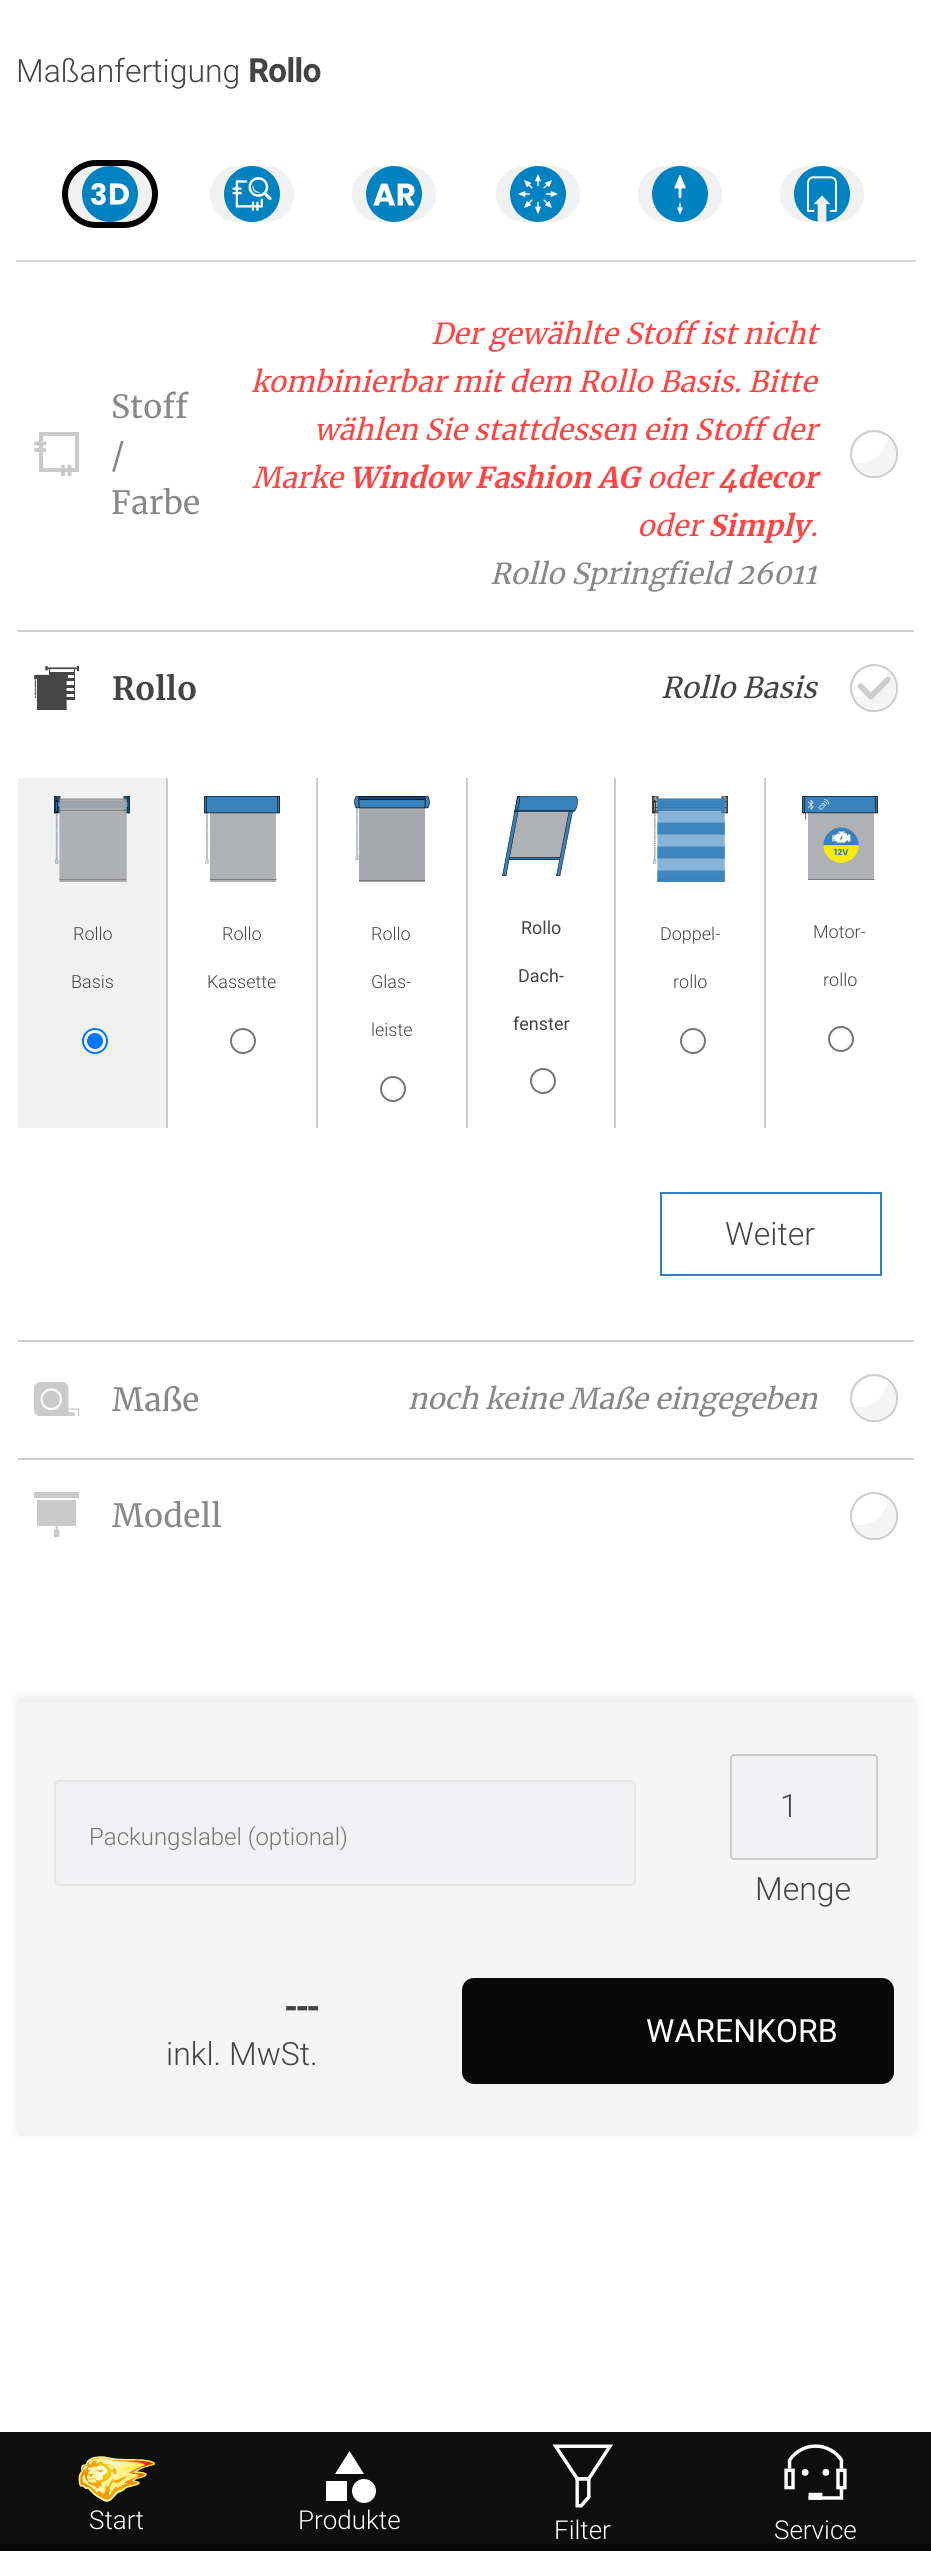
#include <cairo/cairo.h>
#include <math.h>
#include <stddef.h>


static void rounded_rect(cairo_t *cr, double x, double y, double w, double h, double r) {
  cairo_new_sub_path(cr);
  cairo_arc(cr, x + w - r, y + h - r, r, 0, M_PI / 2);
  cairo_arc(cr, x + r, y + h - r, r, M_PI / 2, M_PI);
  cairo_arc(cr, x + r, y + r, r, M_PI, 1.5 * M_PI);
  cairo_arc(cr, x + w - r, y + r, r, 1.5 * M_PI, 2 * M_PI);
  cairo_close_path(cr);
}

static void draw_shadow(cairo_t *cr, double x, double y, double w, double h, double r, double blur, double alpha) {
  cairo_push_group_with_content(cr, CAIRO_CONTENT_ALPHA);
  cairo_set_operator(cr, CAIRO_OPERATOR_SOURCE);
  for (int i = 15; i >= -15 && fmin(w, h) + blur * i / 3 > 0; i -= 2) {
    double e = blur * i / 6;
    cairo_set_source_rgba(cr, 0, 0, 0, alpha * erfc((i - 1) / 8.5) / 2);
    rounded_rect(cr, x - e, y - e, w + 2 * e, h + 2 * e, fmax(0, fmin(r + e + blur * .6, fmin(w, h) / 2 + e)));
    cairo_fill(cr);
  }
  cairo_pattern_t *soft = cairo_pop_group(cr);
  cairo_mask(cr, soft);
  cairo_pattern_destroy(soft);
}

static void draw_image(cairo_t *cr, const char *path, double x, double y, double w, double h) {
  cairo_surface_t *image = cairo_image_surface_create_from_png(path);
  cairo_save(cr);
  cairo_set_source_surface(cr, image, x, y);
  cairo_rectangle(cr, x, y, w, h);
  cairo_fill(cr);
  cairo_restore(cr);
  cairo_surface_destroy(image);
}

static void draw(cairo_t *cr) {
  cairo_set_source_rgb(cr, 1, 1, 1);
  cairo_paint(cr);
  cairo_set_source_rgb(cr, 215 / 255.0, 215 / 255.0, 215 / 255.0);
  cairo_rectangle(cr, 16, 260, 900, 2);
  cairo_fill(cr);
  cairo_set_source_rgb(cr, 241 / 255.0, 241 / 255.0, 241 / 255.0);
  rounded_rect(cr, 65, 163, 90, 62, 31);
  cairo_fill_preserve(cr);
  cairo_set_source_rgb(cr, 0, 0, 0);
  cairo_set_line_width(cr, 6);
  cairo_stroke(cr);
  draw_image(cr, "images/1.png", 82, 166, 56, 56);
  cairo_set_source_rgb(cr, 241 / 255.0, 241 / 255.0, 241 / 255.0);
  rounded_rect(cr, 207, 163, 90, 62, 31);
  cairo_fill_preserve(cr);
  cairo_set_source_rgb(cr, 1, 1, 1);
  cairo_stroke(cr);
  draw_image(cr, "images/2.png", 224, 166, 56, 56);
  cairo_set_source_rgb(cr, 241 / 255.0, 241 / 255.0, 241 / 255.0);
  rounded_rect(cr, 349, 163, 90, 62, 31);
  cairo_fill_preserve(cr);
  cairo_set_source_rgb(cr, 1, 1, 1);
  cairo_stroke(cr);
  draw_image(cr, "images/3.png", 366, 166, 56, 56);
  cairo_set_source_rgb(cr, 241 / 255.0, 241 / 255.0, 241 / 255.0);
  rounded_rect(cr, 493, 163, 90, 62, 31);
  cairo_fill_preserve(cr);
  cairo_set_source_rgb(cr, 1, 1, 1);
  cairo_stroke(cr);
  draw_image(cr, "images/4.png", 510, 166, 56, 56);
  cairo_set_source_rgb(cr, 241 / 255.0, 241 / 255.0, 241 / 255.0);
  rounded_rect(cr, 635, 163, 90, 62, 31);
  cairo_fill_preserve(cr);
  cairo_set_source_rgb(cr, 1, 1, 1);
  cairo_stroke(cr);
  draw_image(cr, "images/5.png", 652, 166, 56, 56);
  cairo_set_source_rgb(cr, 241 / 255.0, 241 / 255.0, 241 / 255.0);
  rounded_rect(cr, 777, 163, 90, 62, 31);
  cairo_fill_preserve(cr);
  cairo_set_source_rgb(cr, 1, 1, 1);
  cairo_stroke(cr);
  draw_image(cr, "images/6.png", 794, 166, 56, 56);
  cairo_rectangle(cr, 41, 434, 36, 36);
  cairo_set_source_rgb(cr, 202 / 255.0, 202 / 255.0, 202 / 255.0);
  cairo_set_line_width(cr, 4);
  cairo_stroke(cr);
  cairo_save(cr);
  cairo_rectangle(cr, 34, 432, 46, 44);
  cairo_clip(cr);
  cairo_new_path(cr);
  cairo_move_to(cr, 63, 466.5);
  cairo_line_to(cr, 63, 475);
  cairo_move_to(cr, 69.5, 466.5);
  cairo_line_to(cr, 69.5, 475);
  cairo_set_line_cap(cr, CAIRO_LINE_CAP_ROUND);
  cairo_stroke(cr);
  cairo_restore(cr);
  cairo_new_path(cr);
  cairo_move_to(cr, 44.5, 443.5);
  cairo_line_to(cr, 36, 443.5);
  cairo_move_to(cr, 44.5, 450);
  cairo_line_to(cr, 36, 450);
  cairo_set_line_cap(cr, CAIRO_LINE_CAP_ROUND);
  cairo_stroke(cr);
  draw_image(cr, "images/7.png", 850, 430, 48, 48);
  cairo_set_source_rgb(cr, 206 / 255.0, 206 / 255.0, 206 / 255.0);
  cairo_rectangle(cr, 18, 630, 896, 2);
  cairo_fill(cr);
  draw_image(cr, "images/8.png", 34, 666, 45, 44);
  draw_image(cr, "images/9.png", 850, 664, 48, 48);
  cairo_set_source_rgb(cr, 241 / 255.0, 241 / 255.0, 241 / 255.0);
  cairo_rectangle(cr, 18, 778, 148, 350);
  cairo_fill(cr);
  cairo_set_source_rgb(cr, 202 / 255.0, 202 / 255.0, 202 / 255.0);
  cairo_rectangle(cr, 166, 778, 2, 350);
  cairo_fill(cr);
  draw_image(cr, "images/10.png", 54, 796, 76, 86);
  cairo_set_source_rgb(cr, 1, 1, 1);
  cairo_arc(cr, 95, 1041, 12, 0, 2 * M_PI);
  cairo_fill_preserve(cr);
  cairo_set_source_rgb(cr, 0, 117 / 255.0, 1);
  cairo_set_line_width(cr, 2);
  cairo_set_line_cap(cr, CAIRO_LINE_CAP_BUTT);
  cairo_stroke(cr);
  cairo_arc(cr, 95, 1041, 8, 0, 2 * M_PI);
  cairo_fill(cr);
  cairo_set_source_rgb(cr, 202 / 255.0, 202 / 255.0, 202 / 255.0);
  cairo_rectangle(cr, 316, 778, 2, 350);
  cairo_fill(cr);
  draw_image(cr, "images/11.png", 204, 796, 76, 86);
  cairo_arc(cr, 243, 1041, 12, 0, 2 * M_PI);
  cairo_set_source_rgb(cr, 118 / 255.0, 118 / 255.0, 118 / 255.0);
  cairo_stroke(cr);
  cairo_set_source_rgb(cr, 202 / 255.0, 202 / 255.0, 202 / 255.0);
  cairo_rectangle(cr, 466, 778, 2, 350);
  cairo_fill(cr);
  draw_image(cr, "images/12.png", 354, 796, 76, 86);
  cairo_arc(cr, 393, 1089, 12, 0, 2 * M_PI);
  cairo_set_source_rgb(cr, 118 / 255.0, 118 / 255.0, 118 / 255.0);
  cairo_stroke(cr);
  cairo_set_source_rgb(cr, 202 / 255.0, 202 / 255.0, 202 / 255.0);
  cairo_rectangle(cr, 614, 778, 2, 350);
  cairo_fill(cr);
  draw_image(cr, "images/13.png", 502, 796, 76, 80);
  cairo_arc(cr, 543, 1081, 12, 0, 2 * M_PI);
  cairo_set_source_rgb(cr, 118 / 255.0, 118 / 255.0, 118 / 255.0);
  cairo_stroke(cr);
  cairo_set_source_rgb(cr, 202 / 255.0, 202 / 255.0, 202 / 255.0);
  cairo_rectangle(cr, 764, 778, 2, 350);
  cairo_fill(cr);
  draw_image(cr, "images/14.png", 652, 796, 76, 86);
  cairo_arc(cr, 693, 1041, 12, 0, 2 * M_PI);
  cairo_set_source_rgb(cr, 118 / 255.0, 118 / 255.0, 118 / 255.0);
  cairo_stroke(cr);
  draw_image(cr, "images/15.png", 802, 796, 76, 84);
  cairo_arc(cr, 841, 1039, 12, 0, 2 * M_PI);
  cairo_stroke(cr);
  cairo_rectangle(cr, 661, 1193, 220, 82);
  cairo_set_source_rgb(cr, 53 / 255.0, 125 / 255.0, 188 / 255.0);
  cairo_stroke(cr);
  cairo_set_source_rgb(cr, 206 / 255.0, 206 / 255.0, 206 / 255.0);
  cairo_rectangle(cr, 18, 1340, 896, 2);
  cairo_fill(cr);
  draw_image(cr, "images/16.png", 34, 1382, 46, 34);
  draw_image(cr, "images/17.png", 850, 1374, 48, 49);
  cairo_rectangle(cr, 18, 1458, 896, 2);
  cairo_fill(cr);
  draw_image(cr, "images/18.png", 34, 1492, 45, 46);
  draw_image(cr, "images/7.png", 850, 1492, 48, 48);
  cairo_set_source_rgb(cr, 0, 0, 0);
  draw_shadow(cr, 18, 1698, 896, 434, 0, 5, 0.1);
  cairo_set_source_rgb(cr, 245 / 255.0, 245 / 255.0, 245 / 255.0);
  cairo_rectangle(cr, 18, 1702, 896, 434);
  cairo_fill(cr);
  cairo_set_source_rgb(cr, 242 / 255.0, 242 / 255.0, 244 / 255.0);
  rounded_rect(cr, 55, 1781, 580, 104, 5);
  cairo_fill_preserve(cr);
  cairo_set_source_rgb(cr, 230 / 255.0, 230 / 255.0, 230 / 255.0);
  cairo_stroke(cr);
  cairo_set_source_rgb(cr, 242 / 255.0, 242 / 255.0, 244 / 255.0);
  rounded_rect(cr, 731, 1755, 146, 104, 3);
  cairo_fill_preserve(cr);
  cairo_set_source_rgb(cr, 204 / 255.0, 204 / 255.0, 204 / 255.0);
  cairo_stroke(cr);
  cairo_set_source_rgb(cr, 8 / 255.0, 8 / 255.0, 8 / 255.0);
  rounded_rect(cr, 462, 1978, 432, 106, 12);
  cairo_fill(cr);
  cairo_set_source_rgb(cr, 14 / 255.0, 14 / 255.0, 15 / 255.0);
  cairo_rectangle(cr, 0, 2432, 931, 112);
  cairo_fill(cr);
  cairo_set_source_rgb(cr, 8 / 255.0, 8 / 255.0, 8 / 255.0);
  cairo_rectangle(cr, 0, 2544, 931, 7);
  cairo_fill(cr);
  draw_image(cr, "images/19.png", 78, 2456, 77, 46);
  cairo_set_source_rgb(cr, 1, 1, 1);
  cairo_new_path(cr);
  cairo_move_to(cr, 349.5, 2451);
  cairo_line_to(cr, 335, 2474);
  cairo_line_to(cr, 364, 2474);
  cairo_close_path(cr);
  cairo_fill(cr);
  cairo_arc(cr, 364, 2491, 12, 0, 2 * M_PI);
  cairo_fill(cr);
  cairo_rectangle(cr, 326, 2481, 21, 20);
  cairo_fill(cr);
  draw_image(cr, "images/20.png", 552, 2444, 61, 64);
  draw_image(cr, "images/21.png", 784, 2444, 63, 56);
  cairo_select_font_face(cr, "Roboto Light", CAIRO_FONT_SLANT_NORMAL, CAIRO_FONT_WEIGHT_NORMAL);
  cairo_set_font_size(cr, 32);
  cairo_set_source_rgb(cr, 68 / 255.0, 68 / 255.0, 68 / 255.0);
  cairo_move_to(cr, 16, 82);
  cairo_show_text(cr, "Maßanfertigung");
  cairo_select_font_face(cr, "Roboto", CAIRO_FONT_SLANT_NORMAL, CAIRO_FONT_WEIGHT_BOLD);
  cairo_move_to(cr, 248, 82);
  cairo_show_text(cr, "Rollo");
  cairo_select_font_face(cr, "Merriweather", CAIRO_FONT_SLANT_NORMAL, CAIRO_FONT_WEIGHT_NORMAL);
  cairo_set_source_rgb(cr, 136 / 255.0, 136 / 255.0, 136 / 255.0);
  cairo_move_to(cr, 111, 418);
  cairo_show_text(cr, "Stoff");
  cairo_move_to(cr, 111, 466);
  cairo_show_text(cr, "/");
  cairo_move_to(cr, 111, 514);
  cairo_show_text(cr, "Farbe");
  cairo_select_font_face(cr, "Merriweather", CAIRO_FONT_SLANT_ITALIC, CAIRO_FONT_WEIGHT_NORMAL);
  cairo_set_font_size(cr, 28.75);
  cairo_set_source_rgb(cr, 1, 68 / 255.0, 68 / 255.0);
  cairo_move_to(cr, 431, 344);
  cairo_show_text(cr, "Der gewählte Stoff ist nicht");
  cairo_move_to(cr, 251, 392);
  cairo_show_text(cr, "kombinierbar mit dem Rollo Basis. Bitte");
  cairo_move_to(cr, 314, 440);
  cairo_show_text(cr, "wählen Sie stattdessen ein Stoff der");
  cairo_move_to(cr, 252, 488);
  cairo_show_text(cr, "Marke");
  cairo_select_font_face(cr, "Merriweather", CAIRO_FONT_SLANT_ITALIC, CAIRO_FONT_WEIGHT_BOLD);
  cairo_move_to(cr, 349, 488);
  cairo_show_text(cr, "Window Fashion AG");
  cairo_select_font_face(cr, "Merriweather", CAIRO_FONT_SLANT_ITALIC, CAIRO_FONT_WEIGHT_NORMAL);
  cairo_move_to(cr, 647, 488);
  cairo_show_text(cr, "oder");
  cairo_select_font_face(cr, "Merriweather", CAIRO_FONT_SLANT_ITALIC, CAIRO_FONT_WEIGHT_BOLD);
  cairo_move_to(cr, 718, 488);
  cairo_show_text(cr, "4decor");
  cairo_select_font_face(cr, "Merriweather", CAIRO_FONT_SLANT_ITALIC, CAIRO_FONT_WEIGHT_NORMAL);
  cairo_move_to(cr, 637, 536);
  cairo_show_text(cr, "oder");
  cairo_select_font_face(cr, "Merriweather", CAIRO_FONT_SLANT_ITALIC, CAIRO_FONT_WEIGHT_BOLD);
  cairo_move_to(cr, 708, 536);
  cairo_show_text(cr, "Simply");
  cairo_select_font_face(cr, "Merriweather", CAIRO_FONT_SLANT_ITALIC, CAIRO_FONT_WEIGHT_NORMAL);
  cairo_move_to(cr, 810, 536);
  cairo_show_text(cr, ".");
  cairo_set_source_rgb(cr, 136 / 255.0, 136 / 255.0, 136 / 255.0);
  cairo_move_to(cr, 490, 584);
  cairo_show_text(cr, "Rollo Springfield 26011");
  cairo_select_font_face(cr, "Merriweather", CAIRO_FONT_SLANT_NORMAL, CAIRO_FONT_WEIGHT_BOLD);
  cairo_set_font_size(cr, 32);
  cairo_set_source_rgb(cr, 68 / 255.0, 68 / 255.0, 68 / 255.0);
  cairo_move_to(cr, 112, 700);
  cairo_show_text(cr, "Rollo");
  cairo_select_font_face(cr, "Merriweather", CAIRO_FONT_SLANT_ITALIC, CAIRO_FONT_WEIGHT_NORMAL);
  cairo_set_font_size(cr, 28.75);
  cairo_move_to(cr, 661, 698);
  cairo_show_text(cr, "Rollo Basis");
  cairo_select_font_face(cr, "Roboto Light", CAIRO_FONT_SLANT_NORMAL, CAIRO_FONT_WEIGHT_NORMAL);
  cairo_set_font_size(cr, 18);
  cairo_move_to(cr, 73, 940);
  cairo_show_text(cr, "Rollo");
  cairo_move_to(cr, 71, 988);
  cairo_show_text(cr, "Basis");
  cairo_move_to(cr, 222, 940);
  cairo_show_text(cr, "Rollo");
  cairo_move_to(cr, 207, 988);
  cairo_show_text(cr, "Kassette");
  cairo_move_to(cr, 371, 940);
  cairo_show_text(cr, "Rollo");
  cairo_move_to(cr, 371, 988);
  cairo_show_text(cr, "Glas-");
  cairo_move_to(cr, 371, 1036);
  cairo_show_text(cr, "leiste");
  cairo_select_font_face(cr, "Roboto", CAIRO_FONT_SLANT_NORMAL, CAIRO_FONT_WEIGHT_NORMAL);
  cairo_move_to(cr, 521, 934);
  cairo_show_text(cr, "Rollo");
  cairo_move_to(cr, 518, 982);
  cairo_show_text(cr, "Dach-");
  cairo_move_to(cr, 513, 1030);
  cairo_show_text(cr, "fenster");
  cairo_select_font_face(cr, "Roboto Light", CAIRO_FONT_SLANT_NORMAL, CAIRO_FONT_WEIGHT_NORMAL);
  cairo_move_to(cr, 660, 940);
  cairo_show_text(cr, "Doppel-");
  cairo_move_to(cr, 673, 988);
  cairo_show_text(cr, "rollo");
  cairo_move_to(cr, 813, 938);
  cairo_show_text(cr, "Motor-");
  cairo_move_to(cr, 823, 986);
  cairo_show_text(cr, "rollo");
  cairo_set_font_size(cr, 32);
  cairo_move_to(cr, 725, 1245);
  cairo_show_text(cr, "Weiter");
  cairo_select_font_face(cr, "Merriweather", CAIRO_FONT_SLANT_NORMAL, CAIRO_FONT_WEIGHT_NORMAL);
  cairo_set_source_rgb(cr, 136 / 255.0, 136 / 255.0, 136 / 255.0);
  cairo_move_to(cr, 112, 1411);
  cairo_show_text(cr, "Maße");
  cairo_select_font_face(cr, "Merriweather", CAIRO_FONT_SLANT_ITALIC, CAIRO_FONT_WEIGHT_NORMAL);
  cairo_set_font_size(cr, 28.75);
  cairo_move_to(cr, 408, 1409);
  cairo_show_text(cr, "noch keine Maße eingegeben");
  cairo_select_font_face(cr, "Merriweather", CAIRO_FONT_SLANT_NORMAL, CAIRO_FONT_WEIGHT_NORMAL);
  cairo_set_font_size(cr, 32);
  cairo_move_to(cr, 112, 1527);
  cairo_show_text(cr, "Modell");
  cairo_select_font_face(cr, "Roboto Light", CAIRO_FONT_SLANT_NORMAL, CAIRO_FONT_WEIGHT_NORMAL);
  cairo_set_font_size(cr, 24);
  cairo_set_source_rgb(cr, 117 / 255.0, 117 / 255.0, 117 / 255.0);
  cairo_move_to(cr, 89, 1845);
  cairo_show_text(cr, "Packungslabel (optional)");
  cairo_set_font_size(cr, 32);
  cairo_set_source_rgb(cr, 68 / 255.0, 68 / 255.0, 68 / 255.0);
  cairo_move_to(cr, 780, 1817);
  cairo_show_text(cr, "1");
  cairo_move_to(cr, 755, 1900);
  cairo_show_text(cr, "Menge");
  cairo_select_font_face(cr, "Roboto", CAIRO_FONT_SLANT_NORMAL, CAIRO_FONT_WEIGHT_BOLD);
  cairo_set_font_size(cr, 34);
  cairo_move_to(cr, 285, 2019);
  cairo_show_text(cr, "---");
  cairo_select_font_face(cr, "Roboto Light", CAIRO_FONT_SLANT_NORMAL, CAIRO_FONT_WEIGHT_NORMAL);
  cairo_set_font_size(cr, 32);
  cairo_move_to(cr, 166, 2065);
  cairo_show_text(cr, "inkl. MwSt.");
  cairo_select_font_face(cr, "Roboto", CAIRO_FONT_SLANT_NORMAL, CAIRO_FONT_WEIGHT_NORMAL);
  cairo_set_source_rgb(cr, 1, 1, 1);
  cairo_move_to(cr, 646, 2042);
  cairo_show_text(cr, "WARENKORB");
  cairo_select_font_face(cr, "Roboto Light", CAIRO_FONT_SLANT_NORMAL, CAIRO_FONT_WEIGHT_NORMAL);
  cairo_set_font_size(cr, 26);
  cairo_move_to(cr, 89, 2529);
  cairo_show_text(cr, "Start");
  cairo_move_to(cr, 298, 2529);
  cairo_show_text(cr, "Produkte");
  cairo_move_to(cr, 554, 2539);
  cairo_show_text(cr, "Filter");
  cairo_move_to(cr, 774, 2539);
  cairo_show_text(cr, "Service");
}

int main(void) {
  cairo_surface_t *surface = cairo_image_surface_create(CAIRO_FORMAT_RGB24, 931, 2551);
  cairo_t *cr = cairo_create(surface);
  cairo_font_options_t *options = cairo_font_options_create();
  cairo_font_options_set_hint_metrics(options, CAIRO_HINT_METRICS_OFF);
  cairo_font_options_set_hint_style(options, CAIRO_HINT_STYLE_NONE);
  cairo_set_font_options(cr, options);
  cairo_set_miter_limit(cr, 4);
  draw(cr);
  cairo_surface_write_to_png(surface, "out.png");
  cairo_font_options_destroy(options);
  cairo_destroy(cr);
  cairo_surface_destroy(surface);
  return 0;
}
